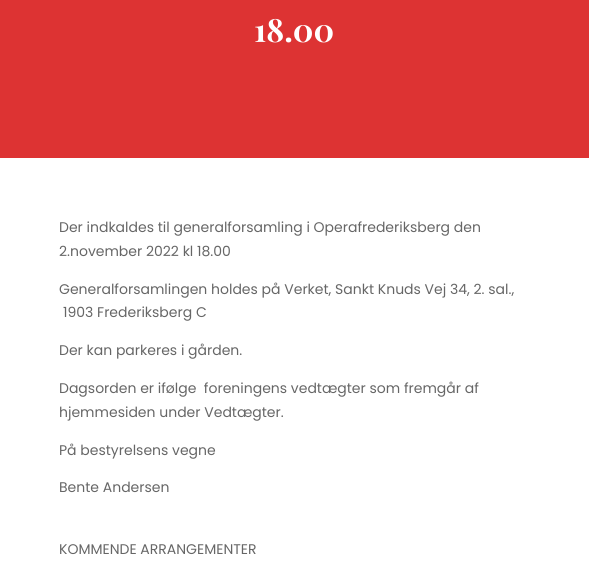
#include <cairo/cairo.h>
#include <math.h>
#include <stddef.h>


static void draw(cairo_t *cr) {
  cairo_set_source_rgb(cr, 1, 1, 1);
  cairo_paint(cr);
  cairo_set_source_rgb(cr, 221 / 255.0, 51 / 255.0, 51 / 255.0);
  cairo_rectangle(cr, 0, 0, 589, 158);
  cairo_fill(cr);
  cairo_select_font_face(cr, "Playfair Display", CAIRO_FONT_SLANT_NORMAL, CAIRO_FONT_WEIGHT_BOLD);
  cairo_set_font_size(cr, 32);
  cairo_set_source_rgb(cr, 1, 1, 1);
  cairo_move_to(cr, 254, 42);
  cairo_show_text(cr, "18.00");
  cairo_select_font_face(cr, "Poppins", CAIRO_FONT_SLANT_NORMAL, CAIRO_FONT_WEIGHT_NORMAL);
  cairo_set_font_size(cr, 14);
  cairo_set_source_rgb(cr, 102 / 255.0, 102 / 255.0, 102 / 255.0);
  cairo_move_to(cr, 59, 232);
  cairo_show_text(cr, "Der indkaldes til generalforsamling i Operafrederiksberg den");
  cairo_move_to(cr, 59, 256);
  cairo_show_text(cr, "2.november 2022 kl 18.00");
  cairo_move_to(cr, 59, 294);
  cairo_show_text(cr, "Generalforsamlingen holdes på Verket, Sankt Knuds Vej 34, 2. sal.,");
  cairo_move_to(cr, 63, 317);
  cairo_show_text(cr, "1903 Frederiksberg C");
  cairo_move_to(cr, 59, 355);
  cairo_show_text(cr, "Der kan parkeres i gården.");
  cairo_move_to(cr, 59, 393);
  cairo_show_text(cr, "Dagsorden er ifølge  foreningens vedtægter som fremgår af");
  cairo_move_to(cr, 59, 417);
  cairo_show_text(cr, "hjemmesiden under Vedtægter.");
  cairo_move_to(cr, 59, 455);
  cairo_show_text(cr, "På bestyrelsens vegne");
  cairo_move_to(cr, 59, 492);
  cairo_show_text(cr, "Bente Andersen");
  cairo_move_to(cr, 59, 554);
  cairo_show_text(cr, "KOMMENDE ARRANGEMENTER");
}

int main(void) {
  cairo_surface_t *surface = cairo_image_surface_create(CAIRO_FORMAT_RGB24, 589, 567);
  cairo_t *cr = cairo_create(surface);
  cairo_font_options_t *options = cairo_font_options_create();
  cairo_font_options_set_hint_metrics(options, CAIRO_HINT_METRICS_OFF);
  cairo_font_options_set_hint_style(options, CAIRO_HINT_STYLE_NONE);
  cairo_set_font_options(cr, options);
  cairo_set_miter_limit(cr, 4);
  draw(cr);
  cairo_surface_write_to_png(surface, "out.png");
  cairo_font_options_destroy(options);
  cairo_destroy(cr);
  cairo_surface_destroy(surface);
  return 0;
}
